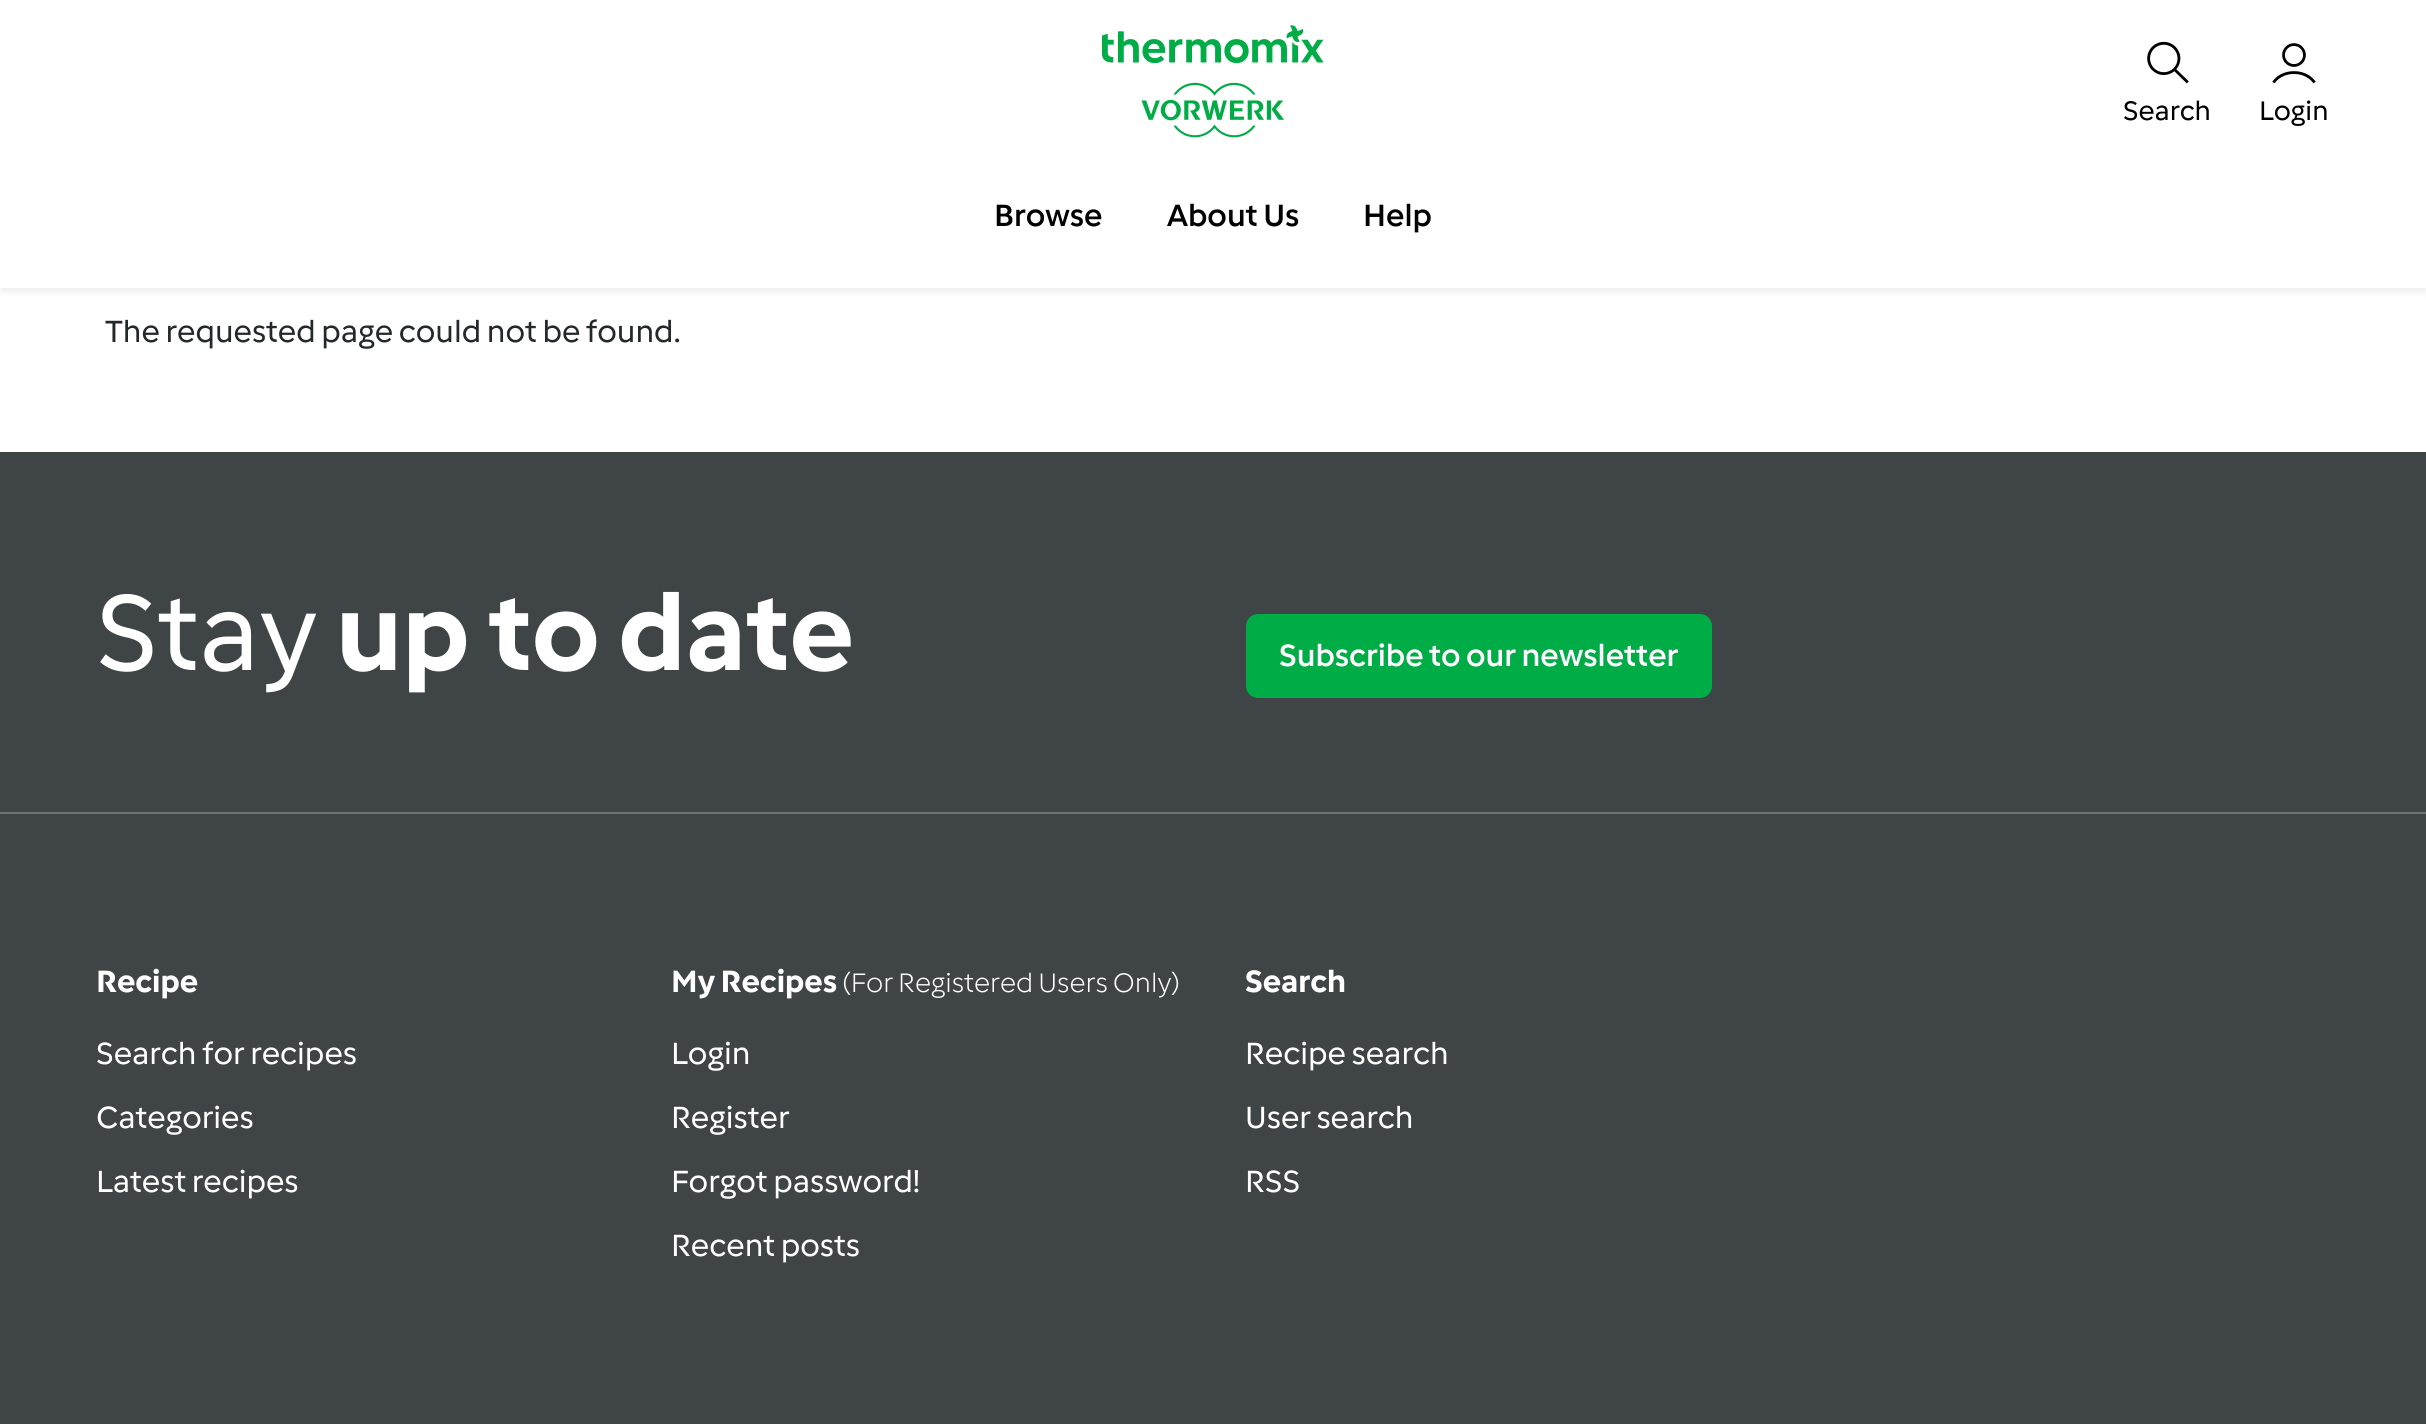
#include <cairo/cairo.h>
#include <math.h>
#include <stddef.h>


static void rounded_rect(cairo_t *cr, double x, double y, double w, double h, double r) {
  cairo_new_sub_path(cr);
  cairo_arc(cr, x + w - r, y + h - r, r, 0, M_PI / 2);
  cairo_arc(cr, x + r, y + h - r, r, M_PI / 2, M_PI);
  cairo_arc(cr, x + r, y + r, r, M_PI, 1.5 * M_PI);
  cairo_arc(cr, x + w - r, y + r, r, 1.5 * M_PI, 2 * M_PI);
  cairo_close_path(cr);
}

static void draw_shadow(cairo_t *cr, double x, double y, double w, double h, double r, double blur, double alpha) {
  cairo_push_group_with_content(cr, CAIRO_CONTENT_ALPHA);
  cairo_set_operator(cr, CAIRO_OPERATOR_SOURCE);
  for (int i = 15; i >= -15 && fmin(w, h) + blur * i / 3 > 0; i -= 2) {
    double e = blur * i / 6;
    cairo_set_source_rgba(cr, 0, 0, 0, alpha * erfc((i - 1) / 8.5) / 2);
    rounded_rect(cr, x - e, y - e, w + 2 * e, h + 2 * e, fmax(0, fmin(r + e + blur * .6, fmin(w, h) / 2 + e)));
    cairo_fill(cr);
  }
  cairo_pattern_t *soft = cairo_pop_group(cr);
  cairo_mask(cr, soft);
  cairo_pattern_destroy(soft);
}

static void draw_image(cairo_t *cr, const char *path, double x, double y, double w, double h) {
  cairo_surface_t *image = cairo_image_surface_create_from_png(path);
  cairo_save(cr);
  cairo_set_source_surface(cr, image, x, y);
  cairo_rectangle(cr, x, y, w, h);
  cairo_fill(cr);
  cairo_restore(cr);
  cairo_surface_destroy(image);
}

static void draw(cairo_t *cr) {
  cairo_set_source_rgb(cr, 1, 1, 1);
  cairo_paint(cr);
  cairo_set_source_rgb(cr, 0, 0, 0);
  draw_shadow(cr, 0, 4, 2426, 288, 0, 4, 0.07);
  cairo_set_source_rgb(cr, 1, 1, 1);
  cairo_rectangle(cr, 0, 0, 2426, 288);
  cairo_fill(cr);
  draw_image(cr, "images/1.png", 1102, 25, 222, 113);
  draw_image(cr, "images/2.png", 2147, 41, 42, 43);
  draw_image(cr, "images/3.png", 2272, 43, 44, 41);
  cairo_set_source_rgb(cr, 63 / 255.0, 68 / 255.0, 71 / 255.0);
  cairo_rectangle(cr, 0, 452, 2426, 972);
  cairo_fill(cr);
  cairo_set_source_rgb(cr, 0, 172 / 255.0, 70 / 255.0);
  rounded_rect(cr, 1247, 615, 464, 82, 11);
  cairo_fill_preserve(cr);
  cairo_stroke(cr);
  cairo_set_source_rgb(cr, 109 / 255.0, 113 / 255.0, 116 / 255.0);
  cairo_rectangle(cr, 0, 812, 2426, 2);
  cairo_fill(cr);
  cairo_select_font_face(cr, "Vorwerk", CAIRO_FONT_SLANT_NORMAL, CAIRO_FONT_WEIGHT_NORMAL);
  cairo_set_font_size(cr, 28);
  cairo_set_source_rgb(cr, 0, 0, 0);
  cairo_move_to(cr, 2123, 120);
  cairo_show_text(cr, "Search");
  cairo_move_to(cr, 2259, 120);
  cairo_show_text(cr, "Login");
  cairo_select_font_face(cr, "Vorwerk Medium", CAIRO_FONT_SLANT_NORMAL, CAIRO_FONT_WEIGHT_NORMAL);
  cairo_set_font_size(cr, 32);
  cairo_move_to(cr, 994, 226);
  cairo_show_text(cr, "Browse");
  cairo_move_to(cr, 1167, 226);
  cairo_show_text(cr, "About Us");
  cairo_move_to(cr, 1363, 226);
  cairo_show_text(cr, "Help");
  cairo_select_font_face(cr, "Vorwerk", CAIRO_FONT_SLANT_NORMAL, CAIRO_FONT_WEIGHT_NORMAL);
  cairo_set_source_rgb(cr, 35 / 255.0, 40 / 255.0, 42 / 255.0);
  cairo_move_to(cr, 105, 342);
  cairo_show_text(cr, "The requested page could not be found.");
  cairo_set_font_size(cr, 112);
  cairo_set_source_rgb(cr, 1, 1, 1);
  cairo_move_to(cr, 96, 670);
  cairo_show_text(cr, "Stay");
  cairo_select_font_face(cr, "Vorwerk", CAIRO_FONT_SLANT_NORMAL, CAIRO_FONT_WEIGHT_BOLD);
  cairo_move_to(cr, 336, 670);
  cairo_show_text(cr, "up to date");
  cairo_select_font_face(cr, "Vorwerk Medium", CAIRO_FONT_SLANT_NORMAL, CAIRO_FONT_WEIGHT_NORMAL);
  cairo_set_font_size(cr, 32);
  cairo_move_to(cr, 1279, 666);
  cairo_show_text(cr, "Subscribe to our newsletter");
  cairo_select_font_face(cr, "Vorwerk", CAIRO_FONT_SLANT_NORMAL, CAIRO_FONT_WEIGHT_BOLD);
  cairo_move_to(cr, 96, 992);
  cairo_show_text(cr, "Recipe");
  cairo_select_font_face(cr, "Vorwerk", CAIRO_FONT_SLANT_NORMAL, CAIRO_FONT_WEIGHT_NORMAL);
  cairo_move_to(cr, 96, 1064);
  cairo_show_text(cr, "Search for recipes");
  cairo_move_to(cr, 96, 1128);
  cairo_show_text(cr, "Categories");
  cairo_move_to(cr, 96, 1192);
  cairo_show_text(cr, "Latest recipes");
  cairo_select_font_face(cr, "Vorwerk", CAIRO_FONT_SLANT_NORMAL, CAIRO_FONT_WEIGHT_BOLD);
  cairo_move_to(cr, 671, 992);
  cairo_show_text(cr, "My Recipes");
  cairo_select_font_face(cr, "Vorwerk Light", CAIRO_FONT_SLANT_NORMAL, CAIRO_FONT_WEIGHT_NORMAL);
  cairo_set_font_size(cr, 28);
  cairo_move_to(cr, 842, 992);
  cairo_show_text(cr, "(For Registered Users Only)");
  cairo_select_font_face(cr, "Vorwerk", CAIRO_FONT_SLANT_NORMAL, CAIRO_FONT_WEIGHT_NORMAL);
  cairo_set_font_size(cr, 32);
  cairo_move_to(cr, 671, 1064);
  cairo_show_text(cr, "Login");
  cairo_move_to(cr, 671, 1128);
  cairo_show_text(cr, "Register");
  cairo_move_to(cr, 671, 1192);
  cairo_show_text(cr, "Forgot password!");
  cairo_move_to(cr, 671, 1256);
  cairo_show_text(cr, "Recent posts");
  cairo_select_font_face(cr, "Vorwerk", CAIRO_FONT_SLANT_NORMAL, CAIRO_FONT_WEIGHT_BOLD);
  cairo_move_to(cr, 1245, 992);
  cairo_show_text(cr, "Search");
  cairo_select_font_face(cr, "Vorwerk", CAIRO_FONT_SLANT_NORMAL, CAIRO_FONT_WEIGHT_NORMAL);
  cairo_move_to(cr, 1245, 1064);
  cairo_show_text(cr, "Recipe search");
  cairo_move_to(cr, 1245, 1128);
  cairo_show_text(cr, "User search");
  cairo_move_to(cr, 1245, 1192);
  cairo_show_text(cr, "RSS");
}

int main(void) {
  cairo_surface_t *surface = cairo_image_surface_create(CAIRO_FORMAT_RGB24, 2426, 1424);
  cairo_t *cr = cairo_create(surface);
  cairo_font_options_t *options = cairo_font_options_create();
  cairo_font_options_set_hint_metrics(options, CAIRO_HINT_METRICS_OFF);
  cairo_font_options_set_hint_style(options, CAIRO_HINT_STYLE_NONE);
  cairo_set_font_options(cr, options);
  cairo_set_miter_limit(cr, 4);
  draw(cr);
  cairo_surface_write_to_png(surface, "out.png");
  cairo_font_options_destroy(options);
  cairo_destroy(cr);
  cairo_surface_destroy(surface);
  return 0;
}
